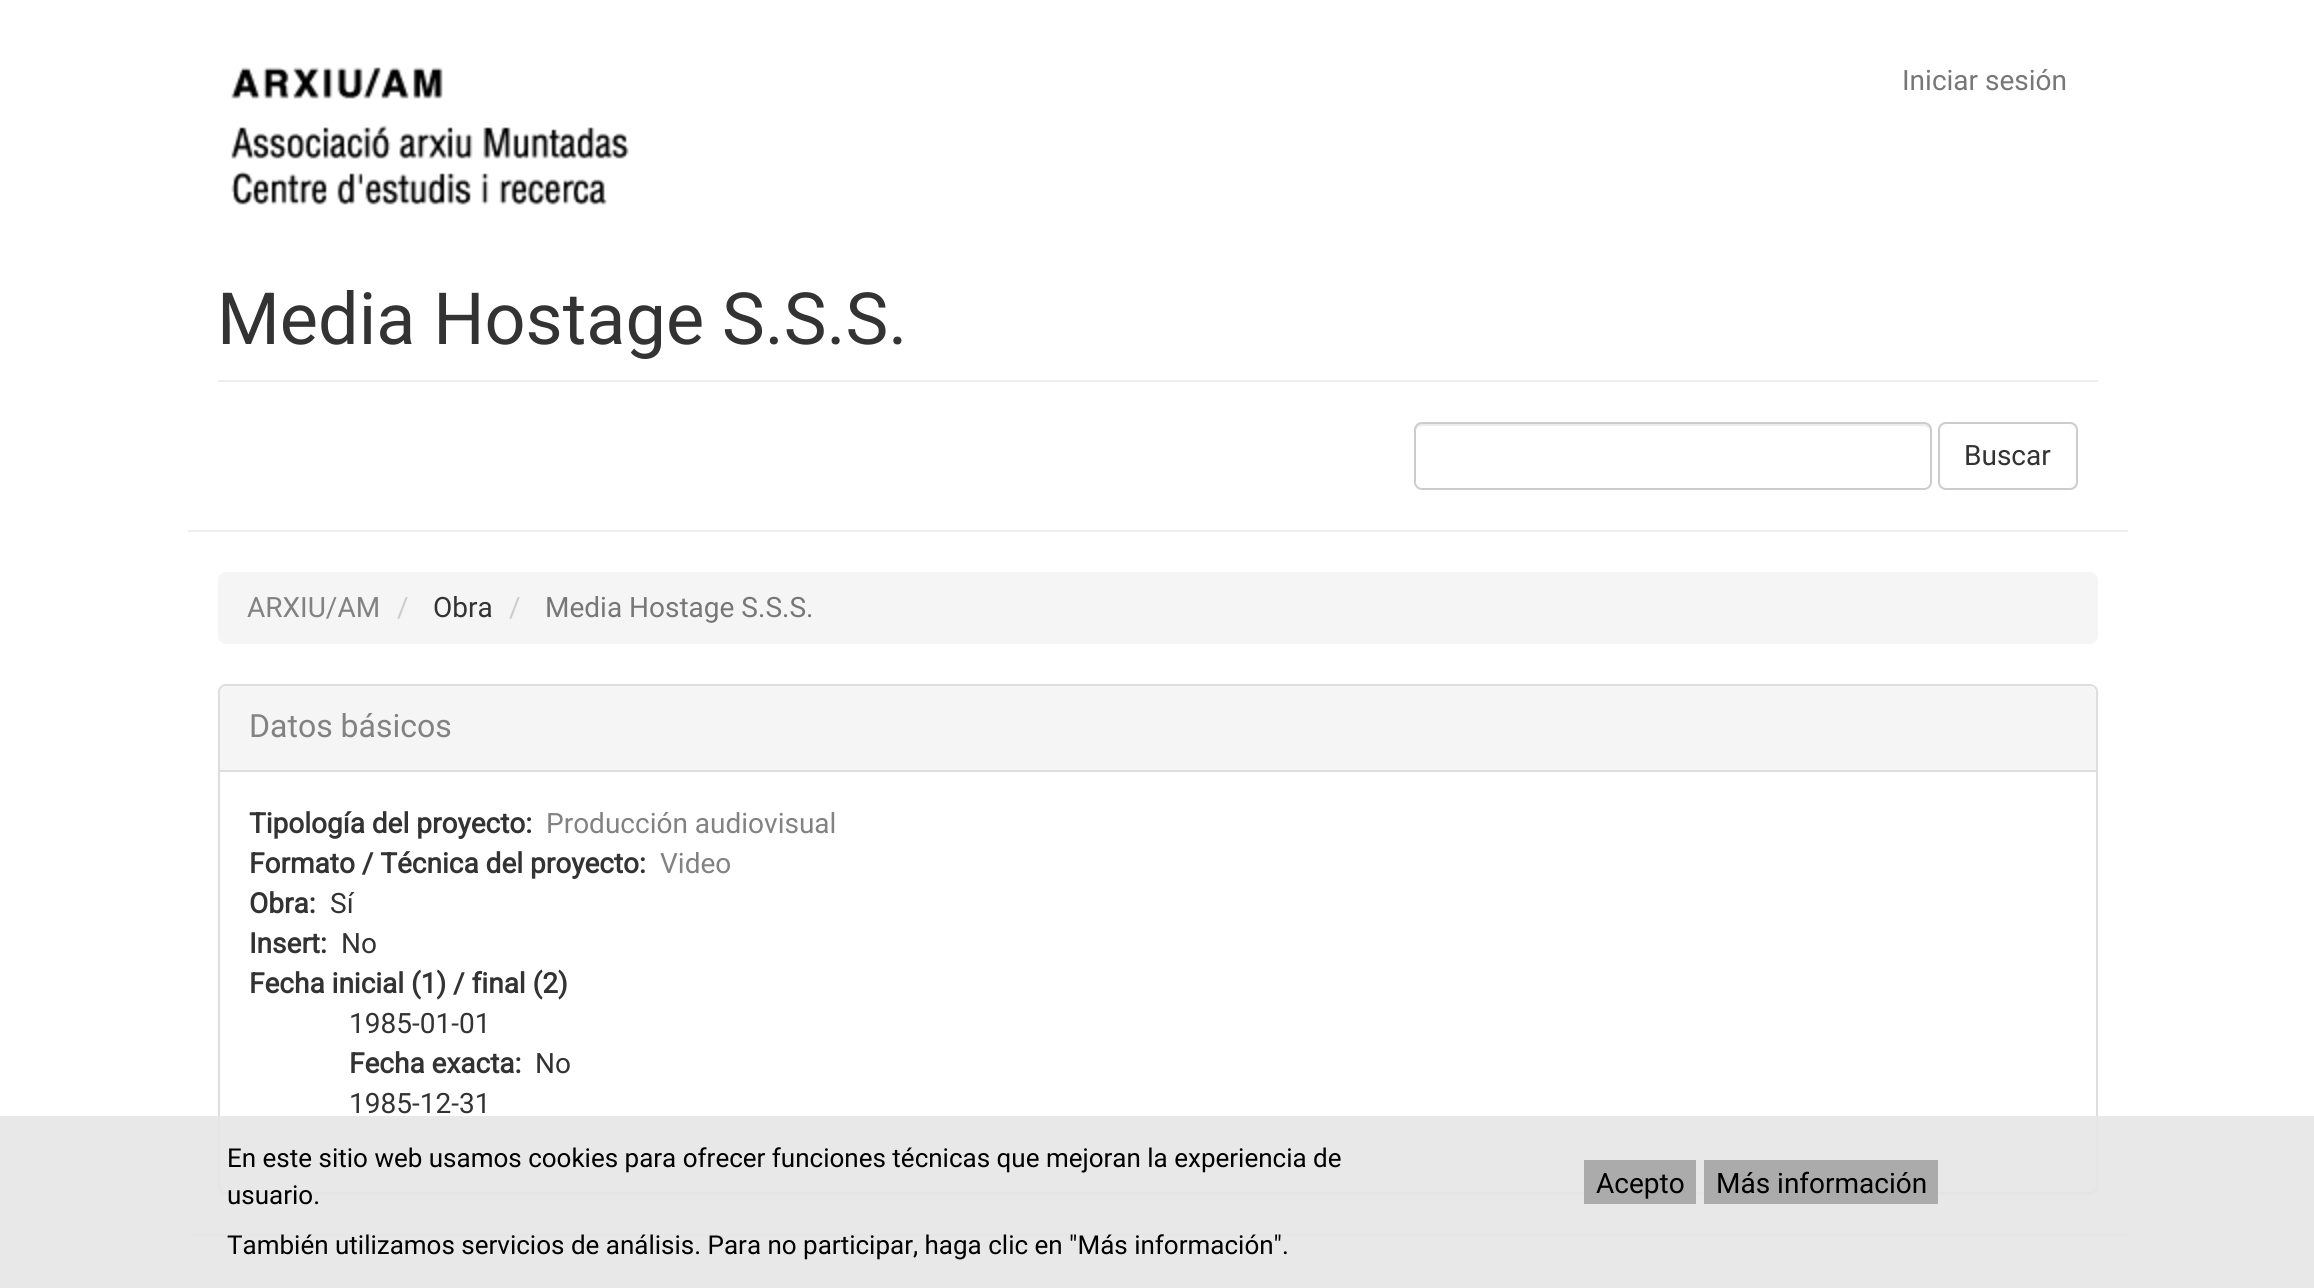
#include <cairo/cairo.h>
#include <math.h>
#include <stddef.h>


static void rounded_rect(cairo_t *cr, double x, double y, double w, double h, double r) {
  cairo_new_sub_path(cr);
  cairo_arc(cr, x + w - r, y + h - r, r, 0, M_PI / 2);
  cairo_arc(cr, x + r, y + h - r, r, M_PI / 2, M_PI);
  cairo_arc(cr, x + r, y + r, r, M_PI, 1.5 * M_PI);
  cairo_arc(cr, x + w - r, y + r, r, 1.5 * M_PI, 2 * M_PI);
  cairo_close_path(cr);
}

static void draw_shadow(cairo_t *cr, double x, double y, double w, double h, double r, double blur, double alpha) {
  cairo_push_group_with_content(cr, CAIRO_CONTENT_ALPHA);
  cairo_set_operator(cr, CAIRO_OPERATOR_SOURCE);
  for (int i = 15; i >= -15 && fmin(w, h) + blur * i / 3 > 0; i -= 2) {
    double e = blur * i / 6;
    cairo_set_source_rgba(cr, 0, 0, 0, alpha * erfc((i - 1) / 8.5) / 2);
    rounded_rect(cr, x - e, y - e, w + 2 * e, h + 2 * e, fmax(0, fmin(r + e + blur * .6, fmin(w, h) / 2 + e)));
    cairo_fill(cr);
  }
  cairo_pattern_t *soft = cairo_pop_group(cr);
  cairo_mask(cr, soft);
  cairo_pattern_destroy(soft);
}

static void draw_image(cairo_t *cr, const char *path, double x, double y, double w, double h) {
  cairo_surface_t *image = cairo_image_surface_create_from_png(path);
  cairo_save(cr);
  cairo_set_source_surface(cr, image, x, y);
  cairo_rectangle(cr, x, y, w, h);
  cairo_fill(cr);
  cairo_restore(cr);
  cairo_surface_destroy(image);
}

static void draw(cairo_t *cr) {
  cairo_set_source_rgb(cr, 1, 1, 1);
  cairo_paint(cr);
  draw_image(cr, "images/1.png", 231, 67, 398, 138);
  cairo_set_source_rgb(cr, 238 / 255.0, 238 / 255.0, 238 / 255.0);
  cairo_rectangle(cr, 188, 530, 1940, 2);
  cairo_fill(cr);
  cairo_rectangle(cr, 218, 380, 1880, 2);
  cairo_fill(cr);
  cairo_set_source_rgb(cr, 236 / 255.0, 236 / 255.0, 236 / 255.0);
  cairo_new_path(cr);
  cairo_move_to(cr, 1422, 426);
  cairo_line_to(cr, 1924, 426);
  cairo_curve_to(cr, 1927, 426, 1930, 429, 1930, 432);
  cairo_line_to(cr, 1930, 430);
  cairo_curve_to(cr, 1930, 427, 1927, 424, 1924, 424);
  cairo_line_to(cr, 1422, 424);
  cairo_curve_to(cr, 1419, 424, 1416, 427, 1416, 430);
  cairo_line_to(cr, 1416, 432);
  cairo_curve_to(cr, 1416, 429, 1419, 426, 1422, 426);
  cairo_close_path(cr);
  cairo_fill(cr);
  rounded_rect(cr, 1415, 423, 516, 66, 7);
  cairo_set_source_rgb(cr, 204 / 255.0, 204 / 255.0, 204 / 255.0);
  cairo_stroke(cr);
  rounded_rect(cr, 1939, 423, 138, 66, 7);
  cairo_stroke(cr);
  cairo_set_source_rgb(cr, 238 / 255.0, 238 / 255.0, 238 / 255.0);
  cairo_rectangle(cr, 188, 1234, 1940, 2);
  cairo_fill(cr);
  cairo_set_source_rgb(cr, 245 / 255.0, 245 / 255.0, 245 / 255.0);
  rounded_rect(cr, 218, 572, 1880, 72, 8);
  cairo_fill(cr);
  cairo_set_source_rgb(cr, 0, 0, 0);
  draw_shadow(cr, 218, 686, 1880, 510, 8, 1, 0.05);
  cairo_set_source_rgb(cr, 1, 1, 1);
  rounded_rect(cr, 219, 685, 1878, 508, 7);
  cairo_fill_preserve(cr);
  cairo_set_source_rgb(cr, 221 / 255.0, 221 / 255.0, 221 / 255.0);
  cairo_stroke(cr);
  cairo_set_source_rgb(cr, 245 / 255.0, 245 / 255.0, 245 / 255.0);
  cairo_new_path(cr);
  cairo_move_to(cr, 226, 686);
  cairo_line_to(cr, 2090, 686);
  cairo_curve_to(cr, 2093.5, 686, 2096, 688.5, 2096, 692);
  cairo_line_to(cr, 2096, 772);
  cairo_line_to(cr, 220, 772);
  cairo_line_to(cr, 220, 692);
  cairo_curve_to(cr, 220, 688.5, 222.5, 686, 226, 686);
  cairo_close_path(cr);
  cairo_fill(cr);
  cairo_set_source_rgb(cr, 221 / 255.0, 221 / 255.0, 221 / 255.0);
  cairo_rectangle(cr, 220, 770, 1876, 2);
  cairo_fill(cr);
  cairo_set_source_rgba(cr, 230 / 255.0, 230 / 255.0, 230 / 255.0, 0.9);
  cairo_rectangle(cr, 0, 1116, 2314, 172);
  cairo_fill(cr);
  cairo_set_source_rgb(cr, 171 / 255.0, 171 / 255.0, 171 / 255.0);
  cairo_rectangle(cr, 1584, 1160, 112, 44);
  cairo_fill(cr);
  cairo_rectangle(cr, 1704, 1160, 234, 44);
  cairo_fill(cr);
  cairo_select_font_face(cr, "Roboto", CAIRO_FONT_SLANT_NORMAL, CAIRO_FONT_WEIGHT_NORMAL);
  cairo_set_font_size(cr, 28);
  cairo_set_source_rgb(cr, 119 / 255.0, 119 / 255.0, 119 / 255.0);
  cairo_move_to(cr, 1902, 90);
  cairo_show_text(cr, "Iniciar sesión");
  cairo_set_font_size(cr, 72);
  cairo_set_source_rgb(cr, 51 / 255.0, 51 / 255.0, 51 / 255.0);
  cairo_move_to(cr, 217, 344);
  cairo_show_text(cr, "Media Hostage S.S.S.");
  cairo_set_font_size(cr, 28);
  cairo_move_to(cr, 1964, 465);
  cairo_show_text(cr, "Buscar");
  cairo_set_source_rgb(cr, 130 / 255.0, 130 / 255.0, 130 / 255.0);
  cairo_move_to(cr, 247, 617);
  cairo_show_text(cr, "ARXIU/AM");
  cairo_set_source_rgb(cr, 204 / 255.0, 204 / 255.0, 204 / 255.0);
  cairo_move_to(cr, 397, 617);
  cairo_show_text(cr, "/");
  cairo_set_source_rgb(cr, 51 / 255.0, 51 / 255.0, 51 / 255.0);
  cairo_move_to(cr, 433, 617);
  cairo_show_text(cr, "Obra");
  cairo_set_source_rgb(cr, 204 / 255.0, 204 / 255.0, 204 / 255.0);
  cairo_move_to(cr, 509, 617);
  cairo_show_text(cr, "/");
  cairo_set_source_rgb(cr, 119 / 255.0, 119 / 255.0, 119 / 255.0);
  cairo_move_to(cr, 545, 617);
  cairo_show_text(cr, "Media Hostage S.S.S.");
  cairo_set_font_size(cr, 32);
  cairo_set_source_rgb(cr, 130 / 255.0, 130 / 255.0, 130 / 255.0);
  cairo_move_to(cr, 249, 737);
  cairo_show_text(cr, "Datos básicos");
  cairo_select_font_face(cr, "Roboto", CAIRO_FONT_SLANT_NORMAL, CAIRO_FONT_WEIGHT_BOLD);
  cairo_set_font_size(cr, 28);
  cairo_set_source_rgb(cr, 51 / 255.0, 51 / 255.0, 51 / 255.0);
  cairo_move_to(cr, 249, 833);
  cairo_show_text(cr, "Tipología del proyecto:");
  cairo_select_font_face(cr, "Roboto", CAIRO_FONT_SLANT_NORMAL, CAIRO_FONT_WEIGHT_NORMAL);
  cairo_set_source_rgb(cr, 130 / 255.0, 130 / 255.0, 130 / 255.0);
  cairo_move_to(cr, 546, 833);
  cairo_show_text(cr, "Producción audiovisual");
  cairo_select_font_face(cr, "Roboto", CAIRO_FONT_SLANT_NORMAL, CAIRO_FONT_WEIGHT_BOLD);
  cairo_set_source_rgb(cr, 51 / 255.0, 51 / 255.0, 51 / 255.0);
  cairo_move_to(cr, 249, 873);
  cairo_show_text(cr, "Formato / Técnica del proyecto:");
  cairo_select_font_face(cr, "Roboto", CAIRO_FONT_SLANT_NORMAL, CAIRO_FONT_WEIGHT_NORMAL);
  cairo_set_source_rgb(cr, 130 / 255.0, 130 / 255.0, 130 / 255.0);
  cairo_move_to(cr, 660, 873);
  cairo_show_text(cr, "Video");
  cairo_select_font_face(cr, "Roboto", CAIRO_FONT_SLANT_NORMAL, CAIRO_FONT_WEIGHT_BOLD);
  cairo_set_source_rgb(cr, 51 / 255.0, 51 / 255.0, 51 / 255.0);
  cairo_move_to(cr, 249, 913);
  cairo_show_text(cr, "Obra:");
  cairo_select_font_face(cr, "Roboto", CAIRO_FONT_SLANT_NORMAL, CAIRO_FONT_WEIGHT_NORMAL);
  cairo_move_to(cr, 330, 913);
  cairo_show_text(cr, "Sí");
  cairo_select_font_face(cr, "Roboto", CAIRO_FONT_SLANT_NORMAL, CAIRO_FONT_WEIGHT_BOLD);
  cairo_move_to(cr, 249, 953);
  cairo_show_text(cr, "Insert:");
  cairo_select_font_face(cr, "Roboto", CAIRO_FONT_SLANT_NORMAL, CAIRO_FONT_WEIGHT_NORMAL);
  cairo_move_to(cr, 341, 953);
  cairo_show_text(cr, "No");
  cairo_select_font_face(cr, "Roboto", CAIRO_FONT_SLANT_NORMAL, CAIRO_FONT_WEIGHT_BOLD);
  cairo_move_to(cr, 249, 993);
  cairo_show_text(cr, "Fecha inicial (1) / final (2)");
  cairo_select_font_face(cr, "Roboto", CAIRO_FONT_SLANT_NORMAL, CAIRO_FONT_WEIGHT_NORMAL);
  cairo_move_to(cr, 349, 1033);
  cairo_show_text(cr, "1985-01-01");
  cairo_select_font_face(cr, "Roboto", CAIRO_FONT_SLANT_NORMAL, CAIRO_FONT_WEIGHT_BOLD);
  cairo_move_to(cr, 349, 1073);
  cairo_show_text(cr, "Fecha exacta:");
  cairo_select_font_face(cr, "Roboto", CAIRO_FONT_SLANT_NORMAL, CAIRO_FONT_WEIGHT_NORMAL);
  cairo_move_to(cr, 535, 1073);
  cairo_show_text(cr, "No");
  cairo_move_to(cr, 349, 1113);
  cairo_show_text(cr, "1985-12-31");
  cairo_set_font_size(cr, 26);
  cairo_set_source_rgb(cr, 0, 0, 0);
  cairo_move_to(cr, 227, 1167);
  cairo_show_text(cr, "En este sitio web usamos cookies para ofrecer funciones técnicas que mejoran la experiencia de");
  cairo_move_to(cr, 227, 1204);
  cairo_show_text(cr, "usuario.");
  cairo_move_to(cr, 227, 1254);
  cairo_show_text(cr, "También utilizamos servicios de análisis. Para no participar, haga clic en \"Más información\".");
  cairo_set_font_size(cr, 28);
  cairo_move_to(cr, 1596, 1193);
  cairo_show_text(cr, "Acepto");
  cairo_move_to(cr, 1716, 1193);
  cairo_show_text(cr, "Más información");
}

int main(void) {
  cairo_surface_t *surface = cairo_image_surface_create(CAIRO_FORMAT_RGB24, 2314, 1288);
  cairo_t *cr = cairo_create(surface);
  cairo_font_options_t *options = cairo_font_options_create();
  cairo_font_options_set_hint_metrics(options, CAIRO_HINT_METRICS_OFF);
  cairo_font_options_set_hint_style(options, CAIRO_HINT_STYLE_NONE);
  cairo_set_font_options(cr, options);
  cairo_set_miter_limit(cr, 4);
  draw(cr);
  cairo_surface_write_to_png(surface, "out.png");
  cairo_font_options_destroy(options);
  cairo_destroy(cr);
  cairo_surface_destroy(surface);
  return 0;
}
